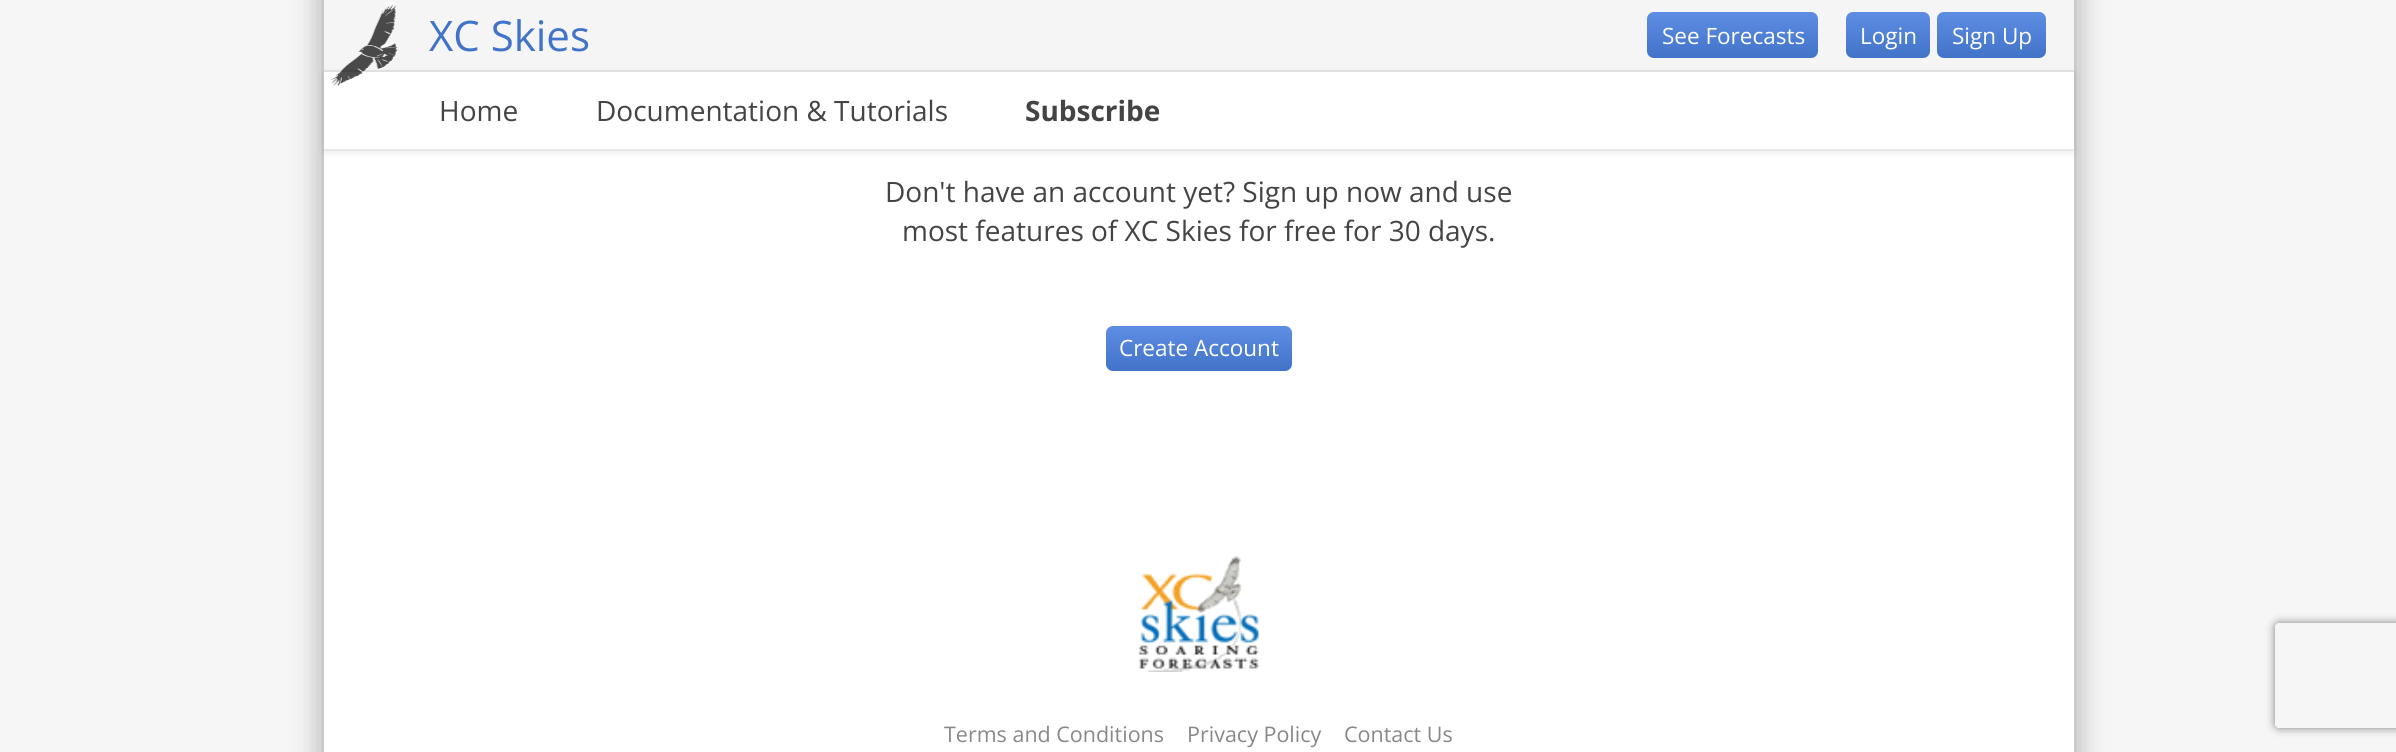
#include <cairo/cairo.h>
#include <math.h>
#include <stddef.h>


static void rounded_rect(cairo_t *cr, double x, double y, double w, double h, double r) {
  cairo_new_sub_path(cr);
  cairo_arc(cr, x + w - r, y + h - r, r, 0, M_PI / 2);
  cairo_arc(cr, x + r, y + h - r, r, M_PI / 2, M_PI);
  cairo_arc(cr, x + r, y + r, r, M_PI, 1.5 * M_PI);
  cairo_arc(cr, x + w - r, y + r, r, 1.5 * M_PI, 2 * M_PI);
  cairo_close_path(cr);
}

static void draw_shadow(cairo_t *cr, double x, double y, double w, double h, double r, double blur, double alpha) {
  cairo_push_group_with_content(cr, CAIRO_CONTENT_ALPHA);
  cairo_set_operator(cr, CAIRO_OPERATOR_SOURCE);
  for (int i = 15; i >= -15 && fmin(w, h) + blur * i / 3 > 0; i -= 2) {
    double e = blur * i / 6;
    cairo_set_source_rgba(cr, 0, 0, 0, alpha * erfc((i - 1) / 8.5) / 2);
    rounded_rect(cr, x - e, y - e, w + 2 * e, h + 2 * e, fmax(0, fmin(r + e + blur * .6, fmin(w, h) / 2 + e)));
    cairo_fill(cr);
  }
  cairo_pattern_t *soft = cairo_pop_group(cr);
  cairo_mask(cr, soft);
  cairo_pattern_destroy(soft);
}

static void draw_image(cairo_t *cr, const char *path, double x, double y, double w, double h) {
  cairo_surface_t *image = cairo_image_surface_create_from_png(path);
  cairo_save(cr);
  cairo_set_source_surface(cr, image, x, y);
  cairo_rectangle(cr, x, y, w, h);
  cairo_fill(cr);
  cairo_restore(cr);
  cairo_surface_destroy(image);
}

static void draw(cairo_t *cr) {
  cairo_pattern_t *gradient;
  cairo_set_source_rgb(cr, 246 / 255.0, 246 / 255.0, 246 / 255.0);
  cairo_paint(cr);
  cairo_set_source_rgb(cr, 0, 0, 0);
  draw_shadow(cr, 324, -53, 1750, 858, 0, 17.5, 0.19);
  draw_shadow(cr, 324, -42, 1750, 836, 0, 14, 0.2);
  cairo_set_source_rgb(cr, 245 / 255.0, 245 / 255.0, 245 / 255.0);
  cairo_rectangle(cr, 324, 0, 1750, 70);
  cairo_fill(cr);
  cairo_set_source_rgb(cr, 250 / 255.0, 250 / 255.0, 250 / 255.0);
  cairo_rectangle(cr, 324, 149, 1750, 2);
  cairo_fill(cr);
  cairo_set_source_rgb(cr, 1, 1, 1);
  cairo_rectangle(cr, 324, 151, 1750, 601);
  cairo_fill(cr);
  cairo_set_source_rgb(cr, 0, 0, 0);
  draw_shadow(cr, 324, 74, 1750, 78, 0, 3.5, 0.1);
  cairo_set_source_rgb(cr, 1, 1, 1);
  cairo_rectangle(cr, 324, 72, 1750, 77);
  cairo_fill(cr);
  cairo_set_source_rgb(cr, 224 / 255.0, 224 / 255.0, 224 / 255.0);
  cairo_rectangle(cr, 324, 70, 1750, 2);
  cairo_fill(cr);
  draw_image(cr, "images/1.png", 330, 1, 68, 85);
  gradient = cairo_pattern_create_linear(1647, 12, 1647, 58);
  cairo_pattern_add_color_stop_rgba(gradient, 0, 94 / 255.0, 142 / 255.0, 228 / 255.0, 1);
  cairo_pattern_add_color_stop_rgba(gradient, 1, 65 / 255.0, 115 / 255.0, 201 / 255.0, 1);
  cairo_set_source(cr, gradient);
  cairo_pattern_destroy(gradient);
  rounded_rect(cr, 1647, 12, 171, 46, 7);
  cairo_fill(cr);
  gradient = cairo_pattern_create_linear(1846, 12, 1846, 58);
  cairo_pattern_add_color_stop_rgba(gradient, 0, 94 / 255.0, 142 / 255.0, 228 / 255.0, 1);
  cairo_pattern_add_color_stop_rgba(gradient, 1, 65 / 255.0, 115 / 255.0, 201 / 255.0, 1);
  cairo_set_source(cr, gradient);
  cairo_pattern_destroy(gradient);
  rounded_rect(cr, 1846, 12, 84, 46, 7);
  cairo_fill(cr);
  gradient = cairo_pattern_create_linear(1937, 12, 1937, 58);
  cairo_pattern_add_color_stop_rgba(gradient, 0, 94 / 255.0, 142 / 255.0, 228 / 255.0, 1);
  cairo_pattern_add_color_stop_rgba(gradient, 1, 65 / 255.0, 115 / 255.0, 201 / 255.0, 1);
  cairo_set_source(cr, gradient);
  cairo_pattern_destroy(gradient);
  rounded_rect(cr, 1937, 12, 109, 46, 7);
  cairo_fill(cr);
  gradient = cairo_pattern_create_linear(1106, 326, 1106, 371);
  cairo_pattern_add_color_stop_rgba(gradient, 0, 94 / 255.0, 142 / 255.0, 228 / 255.0, 1);
  cairo_pattern_add_color_stop_rgba(gradient, 1, 65 / 255.0, 115 / 255.0, 201 / 255.0, 1);
  cairo_set_source(cr, gradient);
  cairo_pattern_destroy(gradient);
  rounded_rect(cr, 1106, 326, 186, 45, 7);
  cairo_fill(cr);
  draw_image(cr, "images/2.png", 1138, 556, 122, 116);
  cairo_save(cr);
  cairo_set_fill_rule(cr, CAIRO_FILL_RULE_EVEN_ODD);
  cairo_new_path(cr);
  cairo_move_to(cr, 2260, 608);
  cairo_line_to(cr, 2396, 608);
  cairo_line_to(cr, 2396, 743);
  cairo_line_to(cr, 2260, 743);
  cairo_close_path(cr);
  cairo_move_to(cr, 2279, 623);
  cairo_line_to(cr, 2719, 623);
  cairo_curve_to(cr, 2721, 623, 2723, 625, 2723, 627);
  cairo_line_to(cr, 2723, 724);
  cairo_curve_to(cr, 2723, 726, 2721, 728, 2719, 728);
  cairo_line_to(cr, 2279, 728);
  cairo_curve_to(cr, 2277, 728, 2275, 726, 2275, 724);
  cairo_line_to(cr, 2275, 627);
  cairo_curve_to(cr, 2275, 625, 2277, 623, 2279, 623);
  cairo_close_path(cr);
  cairo_clip(cr);
  cairo_set_source_rgb(cr, 128 / 255.0, 128 / 255.0, 128 / 255.0);
  draw_shadow(cr, 2275, 623, 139, 105, 4, 4.5, 1);
  cairo_restore(cr);
  cairo_select_font_face(cr, "Open Sans", CAIRO_FONT_SLANT_NORMAL, CAIRO_FONT_WEIGHT_NORMAL);
  cairo_set_font_size(cr, 42);
  cairo_set_source_rgb(cr, 65 / 255.0, 115 / 255.0, 201 / 255.0);
  cairo_move_to(cr, 429, 51);
  cairo_show_text(cr, "XC Skies");
  cairo_set_font_size(cr, 22.5);
  cairo_set_source_rgb(cr, 1, 1, 1);
  cairo_move_to(cr, 1662, 44);
  cairo_show_text(cr, "See Forecasts");
  cairo_move_to(cr, 1860, 44);
  cairo_show_text(cr, "Login");
  cairo_move_to(cr, 1952, 44);
  cairo_show_text(cr, "Sign Up");
  cairo_set_font_size(cr, 28);
  cairo_set_source_rgb(cr, 68 / 255.0, 68 / 255.0, 68 / 255.0);
  cairo_move_to(cr, 439, 121);
  cairo_show_text(cr, "Home");
  cairo_move_to(cr, 596, 121);
  cairo_show_text(cr, "Documentation & Tutorials");
  cairo_select_font_face(cr, "Open Sans", CAIRO_FONT_SLANT_NORMAL, CAIRO_FONT_WEIGHT_BOLD);
  cairo_move_to(cr, 1025, 121);
  cairo_show_text(cr, "Subscribe");
  cairo_select_font_face(cr, "Open Sans", CAIRO_FONT_SLANT_NORMAL, CAIRO_FONT_WEIGHT_NORMAL);
  cairo_move_to(cr, 885, 202);
  cairo_show_text(cr, "Don't have an account yet? Sign up now and use");
  cairo_move_to(cr, 902, 241);
  cairo_show_text(cr, "most features of XC Skies for free for 30 days.");
  cairo_set_font_size(cr, 22.5);
  cairo_set_source_rgb(cr, 1, 1, 1);
  cairo_move_to(cr, 1119, 356);
  cairo_show_text(cr, "Create Account");
  cairo_set_font_size(cr, 21.5);
  cairo_set_source_rgb(cr, 136 / 255.0, 136 / 255.0, 136 / 255.0);
  cairo_move_to(cr, 944, 742);
  cairo_show_text(cr, "Terms and Conditions");
  cairo_move_to(cr, 1187, 742);
  cairo_show_text(cr, "Privacy Policy");
  cairo_move_to(cr, 1344, 742);
  cairo_show_text(cr, "Contact Us");
}

int main(void) {
  cairo_surface_t *surface = cairo_image_surface_create(CAIRO_FORMAT_RGB24, 2396, 752);
  cairo_t *cr = cairo_create(surface);
  cairo_font_options_t *options = cairo_font_options_create();
  cairo_font_options_set_hint_metrics(options, CAIRO_HINT_METRICS_OFF);
  cairo_font_options_set_hint_style(options, CAIRO_HINT_STYLE_NONE);
  cairo_set_font_options(cr, options);
  cairo_set_miter_limit(cr, 4);
  draw(cr);
  cairo_surface_write_to_png(surface, "out.png");
  cairo_font_options_destroy(options);
  cairo_destroy(cr);
  cairo_surface_destroy(surface);
  return 0;
}
